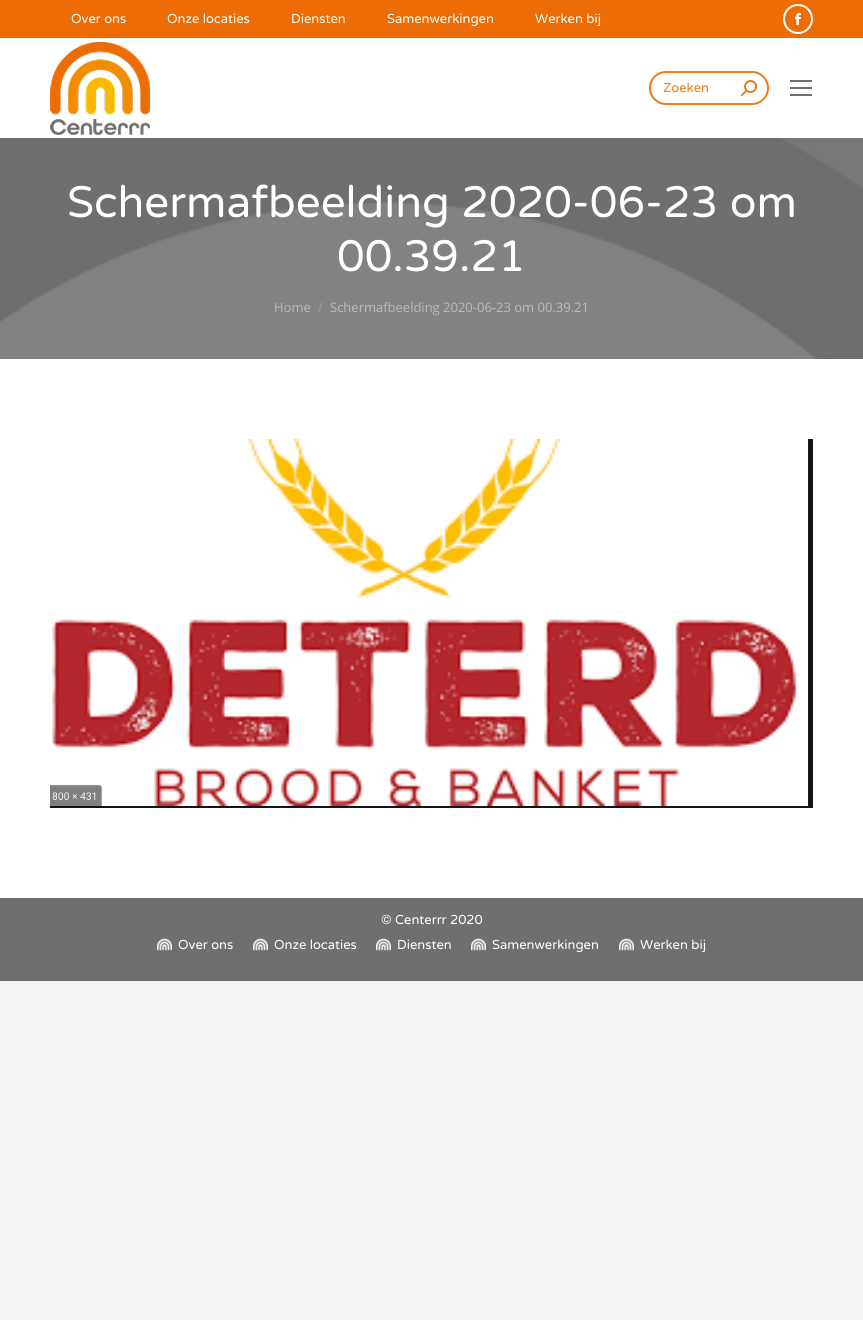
#include <cairo/cairo.h>
#include <math.h>
#include <stddef.h>


static void rounded_rect(cairo_t *cr, double x, double y, double w, double h, double r) {
  cairo_new_sub_path(cr);
  cairo_arc(cr, x + w - r, y + h - r, r, 0, M_PI / 2);
  cairo_arc(cr, x + r, y + h - r, r, M_PI / 2, M_PI);
  cairo_arc(cr, x + r, y + r, r, M_PI, 1.5 * M_PI);
  cairo_arc(cr, x + w - r, y + r, r, 1.5 * M_PI, 2 * M_PI);
  cairo_close_path(cr);
}

static void draw_image(cairo_t *cr, const char *path, double x, double y, double w, double h) {
  cairo_surface_t *image = cairo_image_surface_create_from_png(path);
  cairo_save(cr);
  cairo_set_source_surface(cr, image, x, y);
  cairo_rectangle(cr, x, y, w, h);
  cairo_fill(cr);
  cairo_restore(cr);
  cairo_surface_destroy(image);
}

static void draw(cairo_t *cr) {
  cairo_set_source_rgb(cr, 244 / 255.0, 244 / 255.0, 244 / 255.0);
  cairo_paint(cr);
  cairo_set_source_rgb(cr, 1, 1, 1);
  cairo_rectangle(cr, 0, 38, 863, 860);
  cairo_fill(cr);
  cairo_set_source_rgb(cr, 237 / 255.0, 108 / 255.0, 6 / 255.0);
  cairo_rectangle(cr, 0, 0, 863, 38);
  cairo_fill(cr);
  cairo_arc(cr, 798, 19, 14, 0, 2 * M_PI);
  cairo_set_source_rgb(cr, 1, 1, 1);
  cairo_stroke(cr);
  draw_image(cr, "images/1.png", 795, 13, 6, 12);
  draw_image(cr, "images/2.png", 50, 42, 100, 93);
  rounded_rect(cr, 650, 72, 118, 32, 16);
  cairo_set_source_rgb(cr, 233 / 255.0, 125 / 255.0, 31 / 255.0);
  cairo_stroke(cr);
  draw_image(cr, "images/3.png", 741, 80, 16, 16);
  cairo_set_source_rgb(cr, 112 / 255.0, 110 / 255.0, 111 / 255.0);
  cairo_rectangle(cr, 790, 80, 22, 2);
  cairo_fill(cr);
  cairo_rectangle(cr, 790, 87, 22, 2);
  cairo_fill(cr);
  cairo_rectangle(cr, 790, 94, 22, 2);
  cairo_fill(cr);
  draw_image(cr, "images/4.png", 0, 138, 863, 221);
  draw_image(cr, "images/5.png", 50, 439, 763, 369);
  cairo_rectangle(cr, 0, 898, 863, 83);
  cairo_fill(cr);
  draw_image(cr, "images/6.png", 157, 938, 15, 13);
  draw_image(cr, "images/6.png", 253, 938, 15, 13);
  draw_image(cr, "images/6.png", 376, 938, 15, 13);
  draw_image(cr, "images/6.png", 471, 938, 15, 13);
  draw_image(cr, "images/6.png", 619, 938, 15, 13);
  cairo_select_font_face(cr, "Varela Round", CAIRO_FONT_SLANT_NORMAL, CAIRO_FONT_WEIGHT_NORMAL);
  cairo_set_font_size(cr, 13);
  cairo_set_source_rgb(cr, 1, 1, 1);
  cairo_move_to(cr, 71, 23);
  cairo_show_text(cr, "Over ons");
  cairo_move_to(cr, 167, 23);
  cairo_show_text(cr, "Onze locaties");
  cairo_move_to(cr, 291, 23);
  cairo_show_text(cr, "Diensten");
  cairo_move_to(cr, 387, 23);
  cairo_show_text(cr, "Samenwerkingen");
  cairo_move_to(cr, 535, 23);
  cairo_show_text(cr, "Werken bij");
  cairo_set_source_rgb(cr, 233 / 255.0, 125 / 255.0, 31 / 255.0);
  cairo_move_to(cr, 663, 92);
  cairo_show_text(cr, "Zoeken");
  cairo_set_font_size(cr, 44);
  cairo_set_source_rgb(cr, 1, 1, 1);
  cairo_move_to(cr, 67, 217);
  cairo_show_text(cr, "Schermafbeelding 2020-06-23 om");
  cairo_move_to(cr, 337, 271);
  cairo_show_text(cr, "00.39.21");
  cairo_select_font_face(cr, "Open Sans", CAIRO_FONT_SLANT_NORMAL, CAIRO_FONT_WEIGHT_NORMAL);
  cairo_set_font_size(cr, 13);
  cairo_set_source_rgb(cr, 187 / 255.0, 187 / 255.0, 187 / 255.0);
  cairo_move_to(cr, 274, 312);
  cairo_show_text(cr, "Home");
  cairo_set_source_rgb(cr, 159 / 255.0, 158 / 255.0, 159 / 255.0);
  cairo_move_to(cr, 318, 312);
  cairo_show_text(cr, "/");
  cairo_set_source_rgb(cr, 187 / 255.0, 187 / 255.0, 187 / 255.0);
  cairo_move_to(cr, 330, 312);
  cairo_show_text(cr, "Schermafbeelding 2020-06-23 om 00.39.21");
  cairo_select_font_face(cr, "Varela Round", CAIRO_FONT_SLANT_NORMAL, CAIRO_FONT_WEIGHT_NORMAL);
  cairo_set_source_rgb(cr, 1, 1, 1);
  cairo_move_to(cr, 381, 924);
  cairo_show_text(cr, "© Centerrr 2020");
  cairo_move_to(cr, 178, 949);
  cairo_show_text(cr, "Over ons");
  cairo_move_to(cr, 274, 949);
  cairo_show_text(cr, "Onze locaties");
  cairo_move_to(cr, 397, 949);
  cairo_show_text(cr, "Diensten");
  cairo_move_to(cr, 492, 949);
  cairo_show_text(cr, "Samenwerkingen");
  cairo_move_to(cr, 640, 949);
  cairo_show_text(cr, "Werken bij");
}

int main(void) {
  cairo_surface_t *surface = cairo_image_surface_create(CAIRO_FORMAT_RGB24, 863, 1320);
  cairo_t *cr = cairo_create(surface);
  cairo_font_options_t *options = cairo_font_options_create();
  cairo_font_options_set_hint_metrics(options, CAIRO_HINT_METRICS_OFF);
  cairo_font_options_set_hint_style(options, CAIRO_HINT_STYLE_NONE);
  cairo_set_font_options(cr, options);
  cairo_set_miter_limit(cr, 4);
  draw(cr);
  cairo_surface_write_to_png(surface, "out.png");
  cairo_font_options_destroy(options);
  cairo_destroy(cr);
  cairo_surface_destroy(surface);
  return 0;
}
